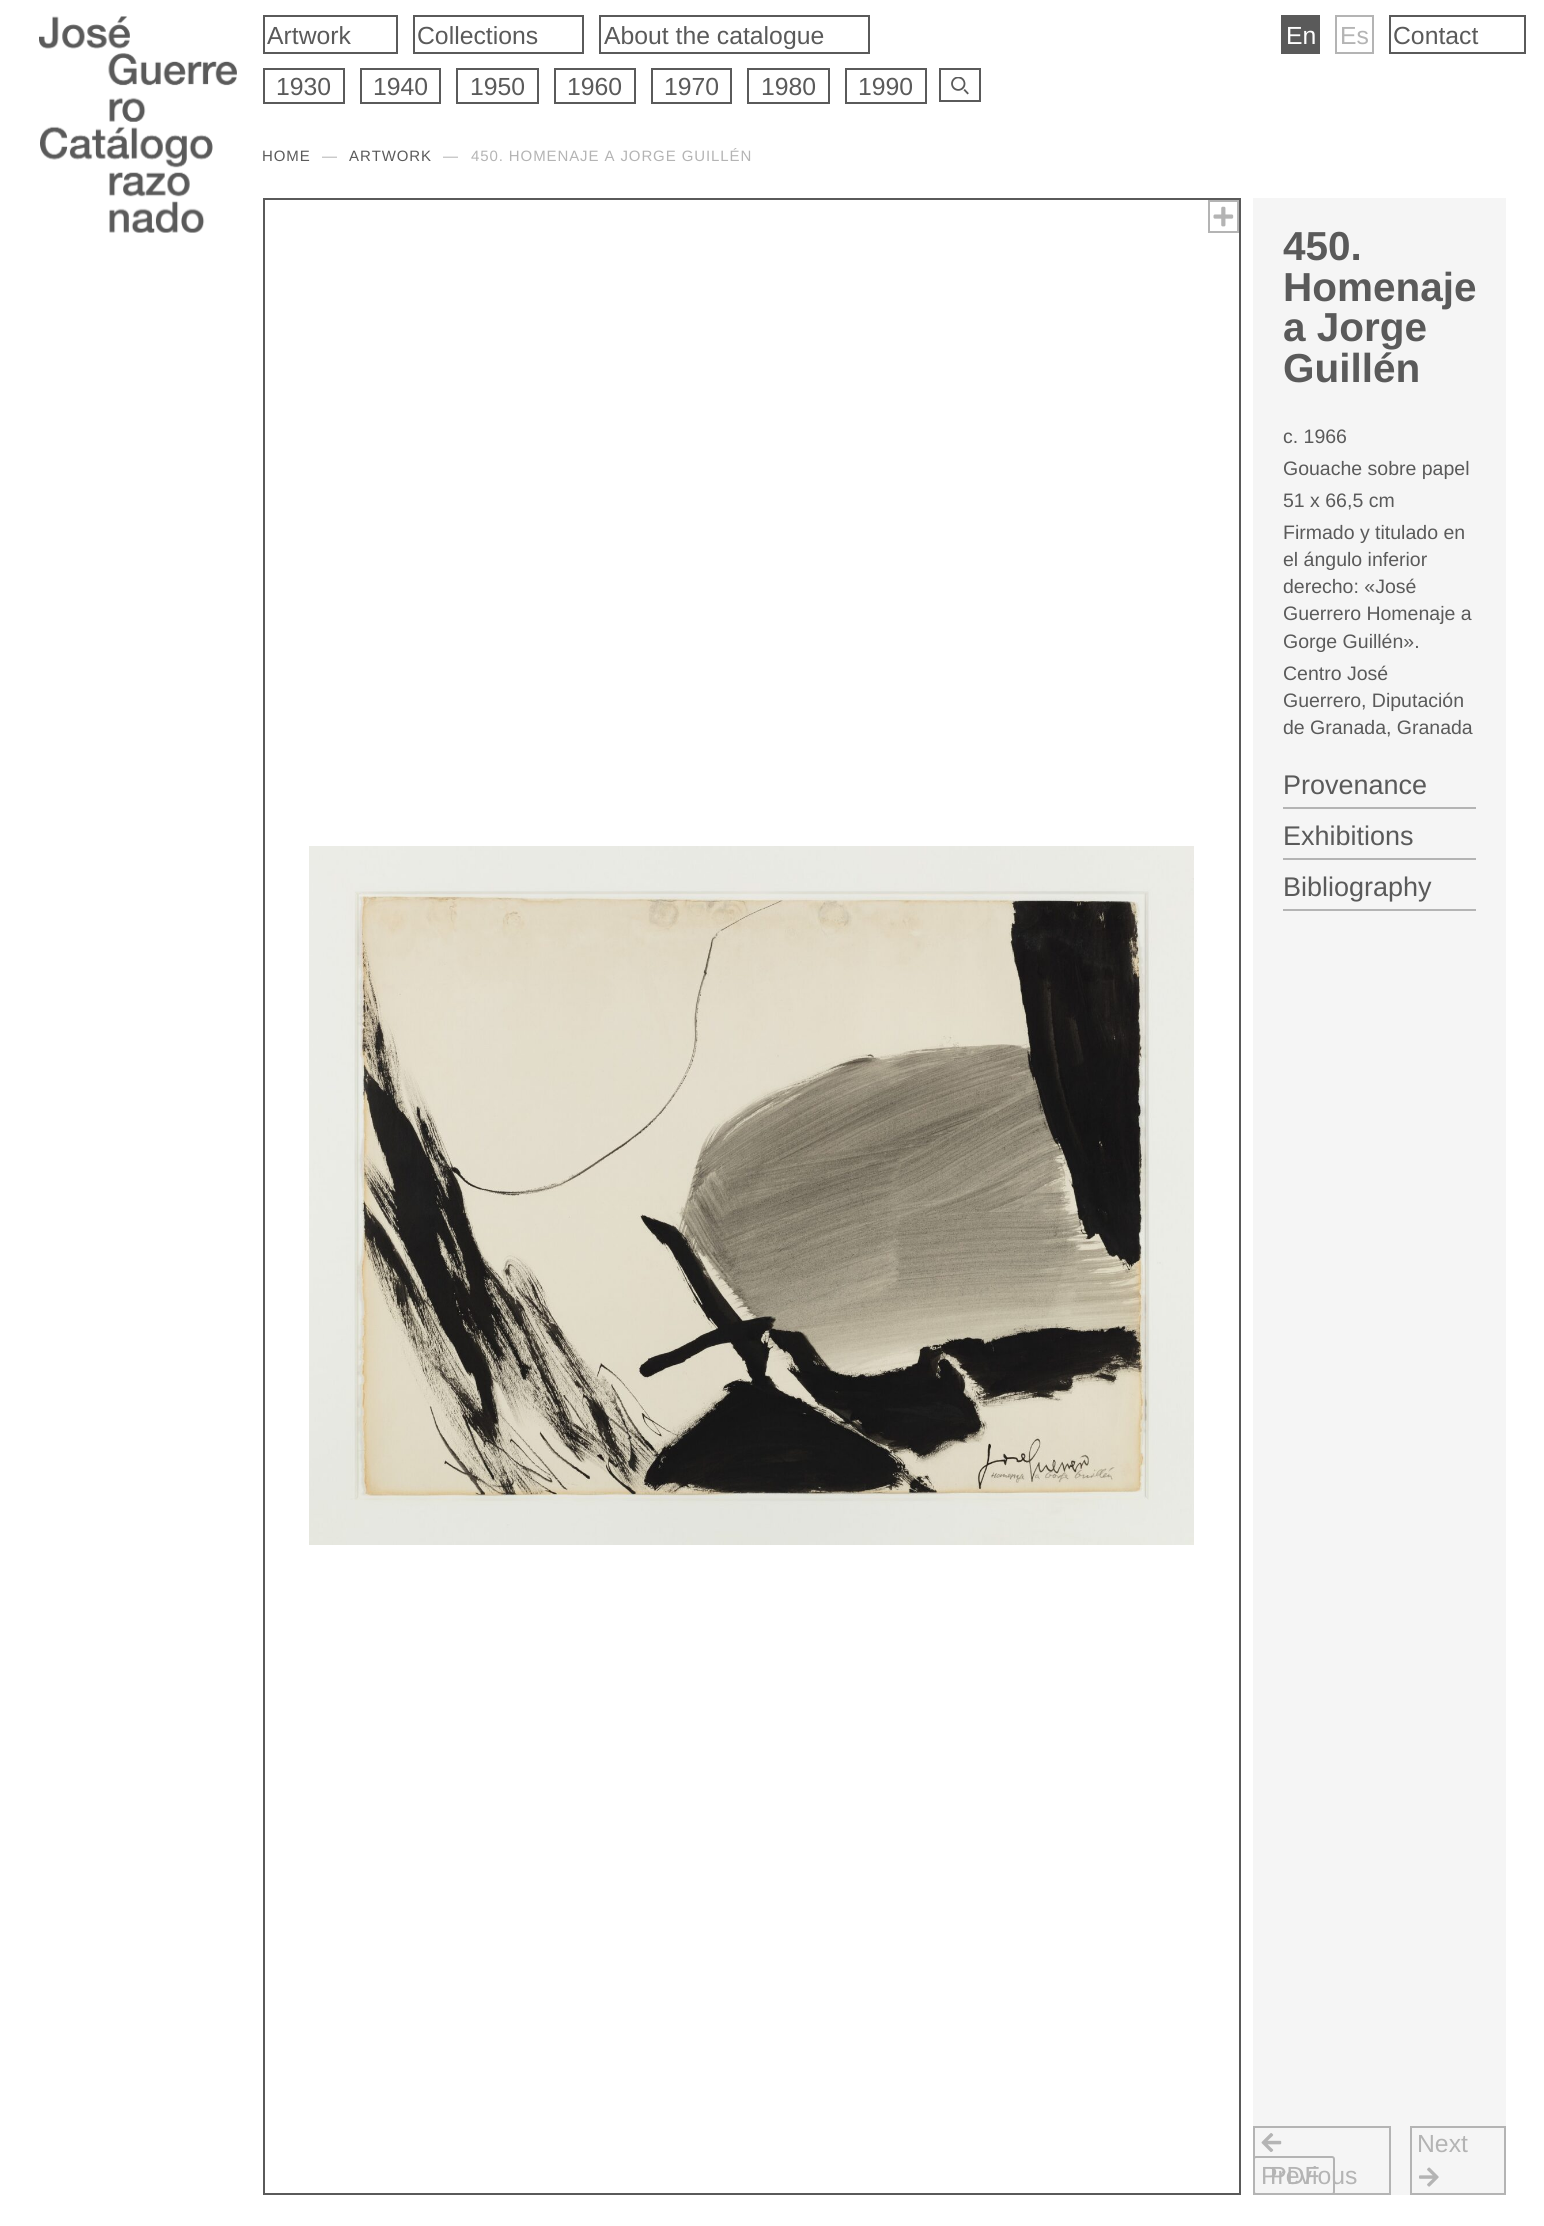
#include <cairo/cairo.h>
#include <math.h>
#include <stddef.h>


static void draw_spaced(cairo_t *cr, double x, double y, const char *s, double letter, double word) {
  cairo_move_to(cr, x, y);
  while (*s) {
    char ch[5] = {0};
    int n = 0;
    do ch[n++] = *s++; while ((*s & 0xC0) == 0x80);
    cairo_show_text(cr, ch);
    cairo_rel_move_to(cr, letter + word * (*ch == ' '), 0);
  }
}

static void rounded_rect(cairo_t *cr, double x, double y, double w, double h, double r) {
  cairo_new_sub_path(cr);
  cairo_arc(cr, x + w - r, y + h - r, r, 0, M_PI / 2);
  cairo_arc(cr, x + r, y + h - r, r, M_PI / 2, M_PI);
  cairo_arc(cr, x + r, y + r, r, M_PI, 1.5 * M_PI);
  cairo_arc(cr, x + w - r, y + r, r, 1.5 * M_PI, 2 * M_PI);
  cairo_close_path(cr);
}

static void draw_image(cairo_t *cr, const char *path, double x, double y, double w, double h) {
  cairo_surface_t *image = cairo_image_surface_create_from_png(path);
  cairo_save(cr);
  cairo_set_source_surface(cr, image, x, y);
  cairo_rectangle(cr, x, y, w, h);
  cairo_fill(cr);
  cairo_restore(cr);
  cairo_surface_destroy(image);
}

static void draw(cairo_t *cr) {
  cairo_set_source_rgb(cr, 1, 1, 1);
  cairo_paint(cr);
  draw_image(cr, "images/1.png", 39, 16, 198, 217);
  cairo_rectangle(cr, 264, 16, 133, 37);
  cairo_set_source_rgb(cr, 90 / 255.0, 90 / 255.0, 90 / 255.0);
  cairo_stroke(cr);
  cairo_rectangle(cr, 414, 16, 169, 37);
  cairo_stroke(cr);
  cairo_rectangle(cr, 600, 16, 269, 37);
  cairo_stroke(cr);
  cairo_rectangle(cr, 264, 69, 80, 34);
  cairo_stroke(cr);
  cairo_rectangle(cr, 361, 69, 79, 34);
  cairo_stroke(cr);
  cairo_rectangle(cr, 457, 69, 81, 34);
  cairo_stroke(cr);
  cairo_rectangle(cr, 555, 69, 80, 34);
  cairo_stroke(cr);
  cairo_rectangle(cr, 652, 69, 79, 34);
  cairo_stroke(cr);
  cairo_rectangle(cr, 748, 69, 81, 34);
  cairo_stroke(cr);
  cairo_rectangle(cr, 846, 69, 80, 34);
  cairo_stroke(cr);
  cairo_rectangle(cr, 940, 69, 40, 32);
  cairo_stroke(cr);
  draw_image(cr, "images/2.png", 951, 77, 18, 18);
  cairo_rectangle(cr, 1281, 15, 39, 39);
  cairo_fill(cr);
  cairo_rectangle(cr, 1336, 16, 37, 37);
  cairo_set_source_rgb(cr, 180 / 255.0, 180 / 255.0, 180 / 255.0);
  cairo_stroke(cr);
  cairo_rectangle(cr, 1390, 16, 135, 37);
  cairo_set_source_rgb(cr, 90 / 255.0, 90 / 255.0, 90 / 255.0);
  cairo_stroke(cr);
  cairo_rectangle(cr, 264, 199, 976, 1995);
  cairo_stroke(cr);
  cairo_rectangle(cr, 1209, 201, 29, 31);
  cairo_set_source_rgb(cr, 180 / 255.0, 180 / 255.0, 180 / 255.0);
  cairo_stroke(cr);
  draw_image(cr, "images/3.png", 1213, 206, 21, 21);
  draw_image(cr, "images/4.png", 309, 846, 885, 699);
  cairo_set_source_rgb(cr, 245 / 255.0, 245 / 255.0, 245 / 255.0);
  cairo_rectangle(cr, 1253, 198, 253, 1997);
  cairo_fill(cr);
  cairo_set_source_rgb(cr, 180 / 255.0, 180 / 255.0, 180 / 255.0);
  cairo_rectangle(cr, 1283, 807, 193, 2);
  cairo_fill(cr);
  cairo_rectangle(cr, 1283, 858, 193, 2);
  cairo_fill(cr);
  cairo_rectangle(cr, 1283, 909, 193, 2);
  cairo_fill(cr);
  cairo_rectangle(cr, 1411, 2127, 94, 67);
  cairo_stroke(cr);
  draw_image(cr, "images/5.png", 1419, 2167, 20, 20);
  cairo_rectangle(cr, 1254, 2127, 136, 67);
  cairo_stroke(cr);
  draw_image(cr, "images/6.png", 1261, 2133, 21, 19);
  rounded_rect(cr, 1254, 2157, 80, 37, 2);
  cairo_stroke(cr);
  cairo_select_font_face(cr, "Liberation Sans", CAIRO_FONT_SLANT_NORMAL, CAIRO_FONT_WEIGHT_NORMAL);
  cairo_set_font_size(cr, 24.75);
  cairo_set_source_rgb(cr, 90 / 255.0, 90 / 255.0, 90 / 255.0);
  cairo_move_to(cr, 267, 44);
  cairo_show_text(cr, "Artwork");
  cairo_move_to(cr, 417, 44);
  cairo_show_text(cr, "Collections");
  cairo_move_to(cr, 604, 44);
  cairo_show_text(cr, "About the catalogue");
  cairo_move_to(cr, 276, 95);
  cairo_show_text(cr, "1930");
  cairo_move_to(cr, 373, 95);
  cairo_show_text(cr, "1940");
  cairo_move_to(cr, 470, 95);
  cairo_show_text(cr, "1950");
  cairo_move_to(cr, 567, 95);
  cairo_show_text(cr, "1960");
  cairo_move_to(cr, 664, 95);
  cairo_show_text(cr, "1970");
  cairo_move_to(cr, 761, 95);
  cairo_show_text(cr, "1980");
  cairo_move_to(cr, 858, 95);
  cairo_show_text(cr, "1990");
  cairo_set_source_rgb(cr, 1, 1, 1);
  cairo_move_to(cr, 1286, 44);
  cairo_show_text(cr, "En");
  cairo_set_source_rgb(cr, 180 / 255.0, 180 / 255.0, 180 / 255.0);
  cairo_move_to(cr, 1340, 44);
  cairo_show_text(cr, "Es");
  cairo_set_source_rgb(cr, 90 / 255.0, 90 / 255.0, 90 / 255.0);
  cairo_move_to(cr, 1393, 44);
  cairo_show_text(cr, "Contact");
  cairo_set_font_size(cr, 15);
  draw_spaced(cr, 262, 161, "HOME", 0.9, 0);
  cairo_set_source_rgb(cr, 180 / 255.0, 180 / 255.0, 180 / 255.0);
  draw_spaced(cr, 322, 161, "—", 0.9, 0);
  cairo_set_source_rgb(cr, 90 / 255.0, 90 / 255.0, 90 / 255.0);
  draw_spaced(cr, 349, 161, "ARTWORK", 0.9, 0);
  cairo_set_source_rgb(cr, 180 / 255.0, 180 / 255.0, 180 / 255.0);
  draw_spaced(cr, 443, 161, "—", 0.9, 0);
  draw_spaced(cr, 471, 161, "450. HOMENAJE A JORGE GUILLÉN", 0.9, 0);
  cairo_select_font_face(cr, "Liberation Sans", CAIRO_FONT_SLANT_NORMAL, CAIRO_FONT_WEIGHT_BOLD);
  cairo_set_font_size(cr, 40.5);
  cairo_set_source_rgb(cr, 90 / 255.0, 90 / 255.0, 90 / 255.0);
  cairo_move_to(cr, 1283, 260);
  cairo_show_text(cr, "450.");
  cairo_move_to(cr, 1283, 301);
  cairo_show_text(cr, "Homenaje");
  cairo_move_to(cr, 1283, 341);
  cairo_show_text(cr, "a Jorge");
  cairo_move_to(cr, 1283, 382);
  cairo_show_text(cr, "Guillén");
  cairo_select_font_face(cr, "Liberation Sans", CAIRO_FONT_SLANT_NORMAL, CAIRO_FONT_WEIGHT_NORMAL);
  cairo_set_font_size(cr, 19.5);
  cairo_move_to(cr, 1283, 443);
  cairo_show_text(cr, "c. 1966");
  cairo_move_to(cr, 1283, 475);
  cairo_show_text(cr, "Gouache sobre papel");
  cairo_move_to(cr, 1283, 507);
  cairo_show_text(cr, "51 x 66,5 cm");
  cairo_move_to(cr, 1283, 539);
  cairo_show_text(cr, "Firmado y titulado en");
  cairo_move_to(cr, 1283, 566);
  cairo_show_text(cr, "el ángulo inferior");
  cairo_move_to(cr, 1283, 593);
  cairo_show_text(cr, "derecho: «José");
  cairo_move_to(cr, 1283, 620);
  cairo_show_text(cr, "Guerrero Homenaje a");
  cairo_move_to(cr, 1283, 648);
  cairo_show_text(cr, "Gorge Guillén».");
  cairo_move_to(cr, 1283, 680);
  cairo_show_text(cr, "Centro José");
  cairo_move_to(cr, 1283, 707);
  cairo_show_text(cr, "Guerrero, Diputación");
  cairo_move_to(cr, 1283, 734);
  cairo_show_text(cr, "de Granada, Granada");
  cairo_set_font_size(cr, 27);
  cairo_move_to(cr, 1283, 794);
  cairo_show_text(cr, "Provenance");
  cairo_move_to(cr, 1283, 845);
  cairo_show_text(cr, "Exhibitions");
  cairo_move_to(cr, 1283, 896);
  cairo_show_text(cr, "Bibliography");
  cairo_set_font_size(cr, 24.75);
  cairo_set_source_rgb(cr, 180 / 255.0, 180 / 255.0, 180 / 255.0);
  cairo_move_to(cr, 1417, 2152);
  cairo_show_text(cr, "Next");
  cairo_move_to(cr, 1261, 2184);
  cairo_show_text(cr, "Previous");
  cairo_move_to(cr, 1270, 2184);
  cairo_show_text(cr, "PDF");
}

int main(void) {
  cairo_surface_t *surface = cairo_image_surface_create(CAIRO_FORMAT_RGB24, 1544, 2226);
  cairo_t *cr = cairo_create(surface);
  cairo_font_options_t *options = cairo_font_options_create();
  cairo_font_options_set_hint_metrics(options, CAIRO_HINT_METRICS_OFF);
  cairo_font_options_set_hint_style(options, CAIRO_HINT_STYLE_NONE);
  cairo_set_font_options(cr, options);
  cairo_set_miter_limit(cr, 4);
  draw(cr);
  cairo_surface_write_to_png(surface, "out.png");
  cairo_font_options_destroy(options);
  cairo_destroy(cr);
  cairo_surface_destroy(surface);
  return 0;
}
